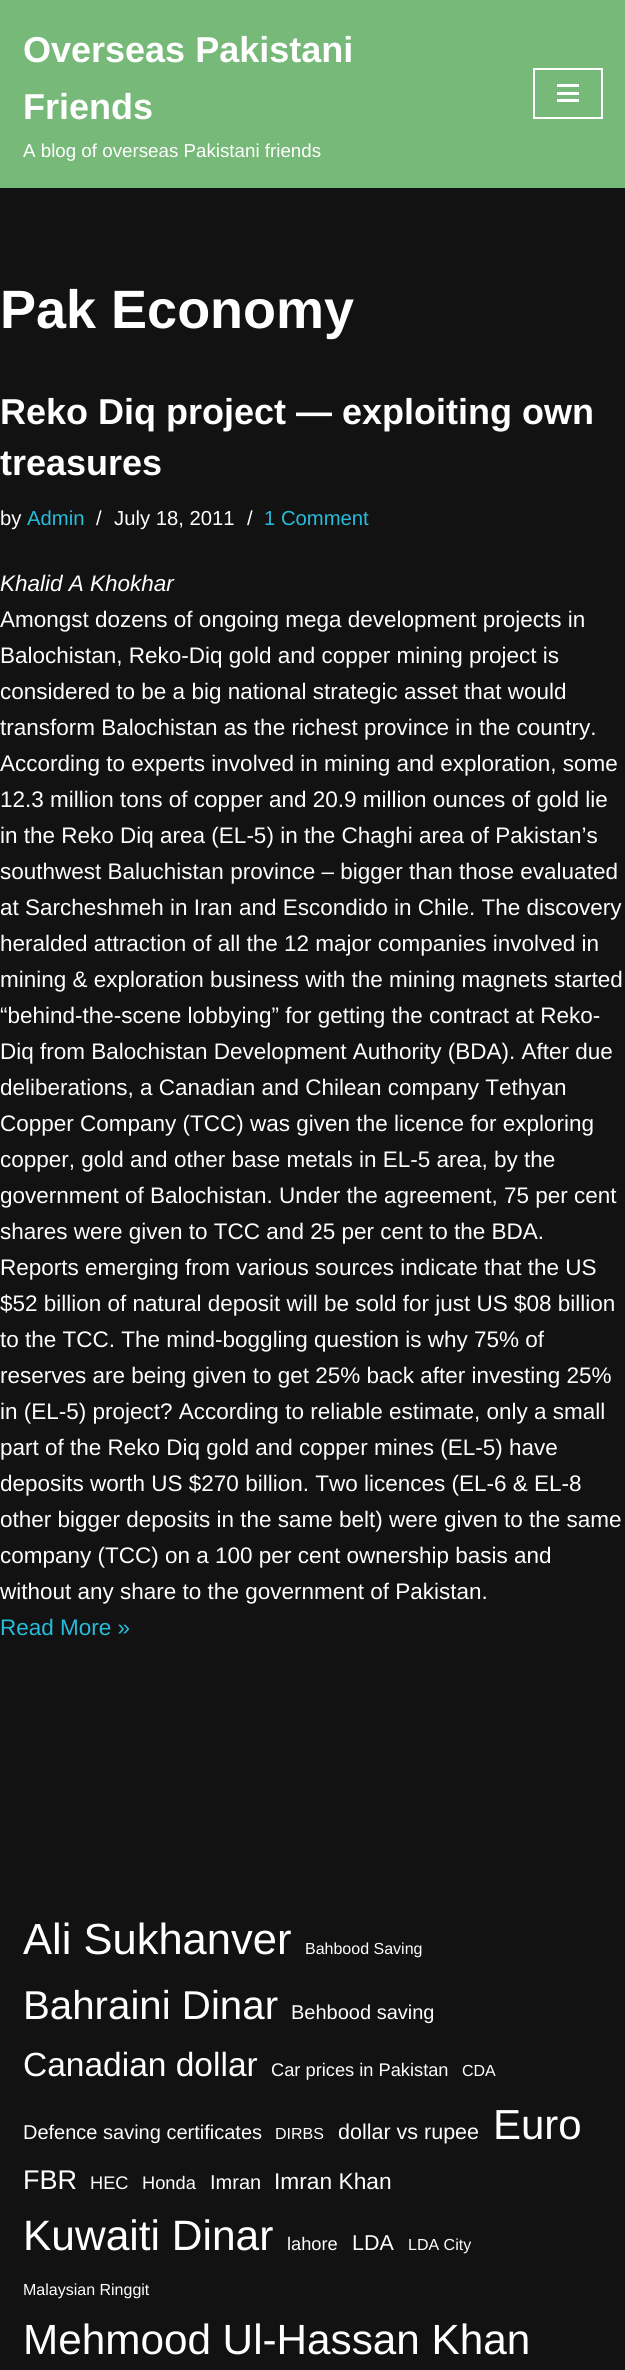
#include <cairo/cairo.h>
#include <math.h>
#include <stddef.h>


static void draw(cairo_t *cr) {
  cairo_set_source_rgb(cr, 18 / 255.0, 18 / 255.0, 18 / 255.0);
  cairo_paint(cr);
  cairo_set_source_rgb(cr, 119 / 255.0, 185 / 255.0, 120 / 255.0);
  cairo_rectangle(cr, 0, 0, 625, 188);
  cairo_fill(cr);
  cairo_rectangle(cr, 534, 69, 68, 49);
  cairo_set_source_rgb(cr, 1, 1, 1);
  cairo_stroke(cr);
  cairo_rectangle(cr, 557, 84, 22, 3);
  cairo_fill(cr);
  cairo_rectangle(cr, 557, 92, 22, 3);
  cairo_fill(cr);
  cairo_rectangle(cr, 557, 99, 22, 3);
  cairo_fill(cr);
  cairo_select_font_face(cr, "Liberation Sans", CAIRO_FONT_SLANT_NORMAL, CAIRO_FONT_WEIGHT_BOLD);
  cairo_set_font_size(cr, 36);
  cairo_move_to(cr, 23, 62);
  cairo_show_text(cr, "Overseas Pakistani");
  cairo_move_to(cr, 23, 119);
  cairo_show_text(cr, "Friends");
  cairo_select_font_face(cr, "Liberation Sans", CAIRO_FONT_SLANT_NORMAL, CAIRO_FONT_WEIGHT_NORMAL);
  cairo_set_font_size(cr, 18.75);
  cairo_move_to(cr, 23, 157);
  cairo_show_text(cr, "A blog of overseas Pakistani friends");
  cairo_select_font_face(cr, "Liberation Sans", CAIRO_FONT_SLANT_NORMAL, CAIRO_FONT_WEIGHT_BOLD);
  cairo_set_font_size(cr, 54);
  cairo_move_to(cr, 0, 328);
  cairo_show_text(cr, "Pak Economy");
  cairo_set_font_size(cr, 36);
  cairo_move_to(cr, 0, 424);
  cairo_show_text(cr, "Reko Diq project — exploiting own");
  cairo_move_to(cr, 0, 475);
  cairo_show_text(cr, "treasures");
  cairo_select_font_face(cr, "Liberation Sans", CAIRO_FONT_SLANT_NORMAL, CAIRO_FONT_WEIGHT_NORMAL);
  cairo_set_font_size(cr, 20.25);
  cairo_move_to(cr, 0, 525);
  cairo_show_text(cr, "by");
  cairo_set_source_rgb(cr, 38 / 255.0, 188 / 255.0, 219 / 255.0);
  cairo_move_to(cr, 27, 525);
  cairo_show_text(cr, "Admin");
  cairo_set_source_rgb(cr, 1, 1, 1);
  cairo_move_to(cr, 96, 525);
  cairo_show_text(cr, "/");
  cairo_move_to(cr, 114, 525);
  cairo_show_text(cr, "July 18, 2011");
  cairo_move_to(cr, 247, 525);
  cairo_show_text(cr, "/");
  cairo_set_source_rgb(cr, 38 / 255.0, 188 / 255.0, 219 / 255.0);
  cairo_move_to(cr, 264, 525);
  cairo_show_text(cr, "1 Comment");
  cairo_select_font_face(cr, "Liberation Sans", CAIRO_FONT_SLANT_ITALIC, CAIRO_FONT_WEIGHT_NORMAL);
  cairo_set_font_size(cr, 22.5);
  cairo_set_source_rgb(cr, 1, 1, 1);
  cairo_move_to(cr, 0, 591);
  cairo_show_text(cr, "Khalid A Khokhar");
  cairo_select_font_face(cr, "Liberation Sans", CAIRO_FONT_SLANT_NORMAL, CAIRO_FONT_WEIGHT_NORMAL);
  cairo_move_to(cr, 0, 627);
  cairo_show_text(cr, "Amongst dozens of ongoing mega development projects in");
  cairo_move_to(cr, 0, 663);
  cairo_show_text(cr, "Balochistan, Reko-Diq gold and copper mining project is");
  cairo_move_to(cr, 0, 699);
  cairo_show_text(cr, "considered to be a big national strategic asset that would");
  cairo_move_to(cr, 0, 735);
  cairo_show_text(cr, "transform Balochistan as the richest province in the country.");
  cairo_move_to(cr, 0, 771);
  cairo_show_text(cr, "According to experts involved in mining and exploration, some");
  cairo_move_to(cr, 0, 807);
  cairo_show_text(cr, "12.3 million tons of copper and 20.9 million ounces of gold lie");
  cairo_move_to(cr, 0, 843);
  cairo_show_text(cr, "in the Reko Diq area (EL-5) in the Chaghi area of Pakistan’s");
  cairo_move_to(cr, 0, 879);
  cairo_show_text(cr, "southwest Baluchistan province – bigger than those evaluated");
  cairo_move_to(cr, 0, 915);
  cairo_show_text(cr, "at Sarcheshmeh in Iran and Escondido in Chile. The discovery");
  cairo_move_to(cr, 0, 951);
  cairo_show_text(cr, "heralded attraction of all the 12 major companies involved in");
  cairo_move_to(cr, 0, 987);
  cairo_show_text(cr, "mining & exploration business with the mining magnets started");
  cairo_move_to(cr, 0, 1023);
  cairo_show_text(cr, "“behind-the-scene lobbying” for getting the contract at Reko-");
  cairo_move_to(cr, 0, 1059);
  cairo_show_text(cr, "Diq from Balochistan Development Authority (BDA). After due");
  cairo_move_to(cr, 0, 1095);
  cairo_show_text(cr, "deliberations, a Canadian and Chilean company Tethyan");
  cairo_move_to(cr, 0, 1131);
  cairo_show_text(cr, "Copper Company (TCC) was given the licence for exploring");
  cairo_move_to(cr, 0, 1167);
  cairo_show_text(cr, "copper, gold and other base metals in EL-5 area, by the");
  cairo_move_to(cr, 0, 1203);
  cairo_show_text(cr, "government of Balochistan. Under the agreement, 75 per cent");
  cairo_move_to(cr, 0, 1239);
  cairo_show_text(cr, "shares were given to TCC and 25 per cent to the BDA.");
  cairo_move_to(cr, 0, 1275);
  cairo_show_text(cr, "Reports emerging from various sources indicate that the US");
  cairo_move_to(cr, 0, 1311);
  cairo_show_text(cr, "$52 billion of natural deposit will be sold for just US $08 billion");
  cairo_move_to(cr, 0, 1347);
  cairo_show_text(cr, "to the TCC. The mind-boggling question is why 75% of");
  cairo_move_to(cr, 0, 1383);
  cairo_show_text(cr, "reserves are being given to get 25% back after investing 25%");
  cairo_move_to(cr, 0, 1419);
  cairo_show_text(cr, "in (EL-5) project? According to reliable estimate, only a small");
  cairo_move_to(cr, 0, 1455);
  cairo_show_text(cr, "part of the Reko Diq gold and copper mines (EL-5) have");
  cairo_move_to(cr, 0, 1491);
  cairo_show_text(cr, "deposits worth US $270 billion. Two licences (EL-6 & EL-8");
  cairo_move_to(cr, 0, 1527);
  cairo_show_text(cr, "other bigger deposits in the same belt) were given to the same");
  cairo_move_to(cr, 0, 1563);
  cairo_show_text(cr, "company (TCC) on a 100 per cent ownership basis and");
  cairo_move_to(cr, 0, 1599);
  cairo_show_text(cr, "without any share to the government of Pakistan.");
  cairo_set_source_rgb(cr, 38 / 255.0, 188 / 255.0, 219 / 255.0);
  cairo_move_to(cr, 0, 1635);
  cairo_show_text(cr, "Read More »");
  cairo_set_font_size(cr, 43.5);
  cairo_set_source_rgb(cr, 1, 1, 1);
  cairo_move_to(cr, 23, 1954);
  cairo_show_text(cr, "Ali Sukhanver");
  cairo_set_font_size(cr, 16);
  cairo_move_to(cr, 305, 1954);
  cairo_show_text(cr, "Bahbood Saving");
  cairo_set_font_size(cr, 40.25);
  cairo_move_to(cr, 23, 2019);
  cairo_show_text(cr, "Bahraini Dinar");
  cairo_set_font_size(cr, 20);
  cairo_move_to(cr, 291, 2019);
  cairo_show_text(cr, "Behbood saving");
  cairo_set_font_size(cr, 33.5);
  cairo_move_to(cr, 23, 2076);
  cairo_show_text(cr, "Canadian dollar");
  cairo_set_font_size(cr, 18.25);
  cairo_move_to(cr, 271, 2076);
  cairo_show_text(cr, "Car prices in Pakistan");
  cairo_set_font_size(cr, 16);
  cairo_move_to(cr, 462, 2076);
  cairo_show_text(cr, "CDA");
  cairo_set_font_size(cr, 20);
  cairo_move_to(cr, 23, 2139);
  cairo_show_text(cr, "Defence saving certificates");
  cairo_set_font_size(cr, 16);
  cairo_move_to(cr, 275, 2139);
  cairo_show_text(cr, "DIRBS");
  cairo_set_font_size(cr, 21.5);
  cairo_move_to(cr, 338, 2139);
  cairo_show_text(cr, "dollar vs rupee");
  cairo_set_font_size(cr, 42);
  cairo_move_to(cr, 493, 2139);
  cairo_show_text(cr, "Euro");
  cairo_set_font_size(cr, 27);
  cairo_move_to(cr, 23, 2189);
  cairo_show_text(cr, "FBR");
  cairo_set_font_size(cr, 18.25);
  cairo_move_to(cr, 90, 2189);
  cairo_show_text(cr, "HEC");
  cairo_move_to(cr, 142, 2189);
  cairo_show_text(cr, "Honda");
  cairo_set_font_size(cr, 20);
  cairo_move_to(cr, 210, 2189);
  cairo_show_text(cr, "Imran");
  cairo_set_font_size(cr, 22.75);
  cairo_move_to(cr, 274, 2189);
  cairo_show_text(cr, "Imran Khan");
  cairo_set_font_size(cr, 42.5);
  cairo_move_to(cr, 23, 2250);
  cairo_show_text(cr, "Kuwaiti Dinar");
  cairo_set_font_size(cr, 18.25);
  cairo_move_to(cr, 287, 2250);
  cairo_show_text(cr, "lahore");
  cairo_set_font_size(cr, 21.5);
  cairo_move_to(cr, 352, 2250);
  cairo_show_text(cr, "LDA");
  cairo_set_font_size(cr, 16);
  cairo_move_to(cr, 408, 2250);
  cairo_show_text(cr, "LDA City");
  cairo_move_to(cr, 23, 2295);
  cairo_show_text(cr, "Malaysian Ringgit");
  cairo_set_font_size(cr, 42.25);
  cairo_move_to(cr, 23, 2354);
  cairo_show_text(cr, "Mehmood Ul-Hassan Khan");
}

int main(void) {
  cairo_surface_t *surface = cairo_image_surface_create(CAIRO_FORMAT_RGB24, 625, 2370);
  cairo_t *cr = cairo_create(surface);
  cairo_font_options_t *options = cairo_font_options_create();
  cairo_font_options_set_hint_metrics(options, CAIRO_HINT_METRICS_OFF);
  cairo_font_options_set_hint_style(options, CAIRO_HINT_STYLE_NONE);
  cairo_set_font_options(cr, options);
  cairo_set_miter_limit(cr, 4);
  draw(cr);
  cairo_surface_write_to_png(surface, "out.png");
  cairo_font_options_destroy(options);
  cairo_destroy(cr);
  cairo_surface_destroy(surface);
  return 0;
}
